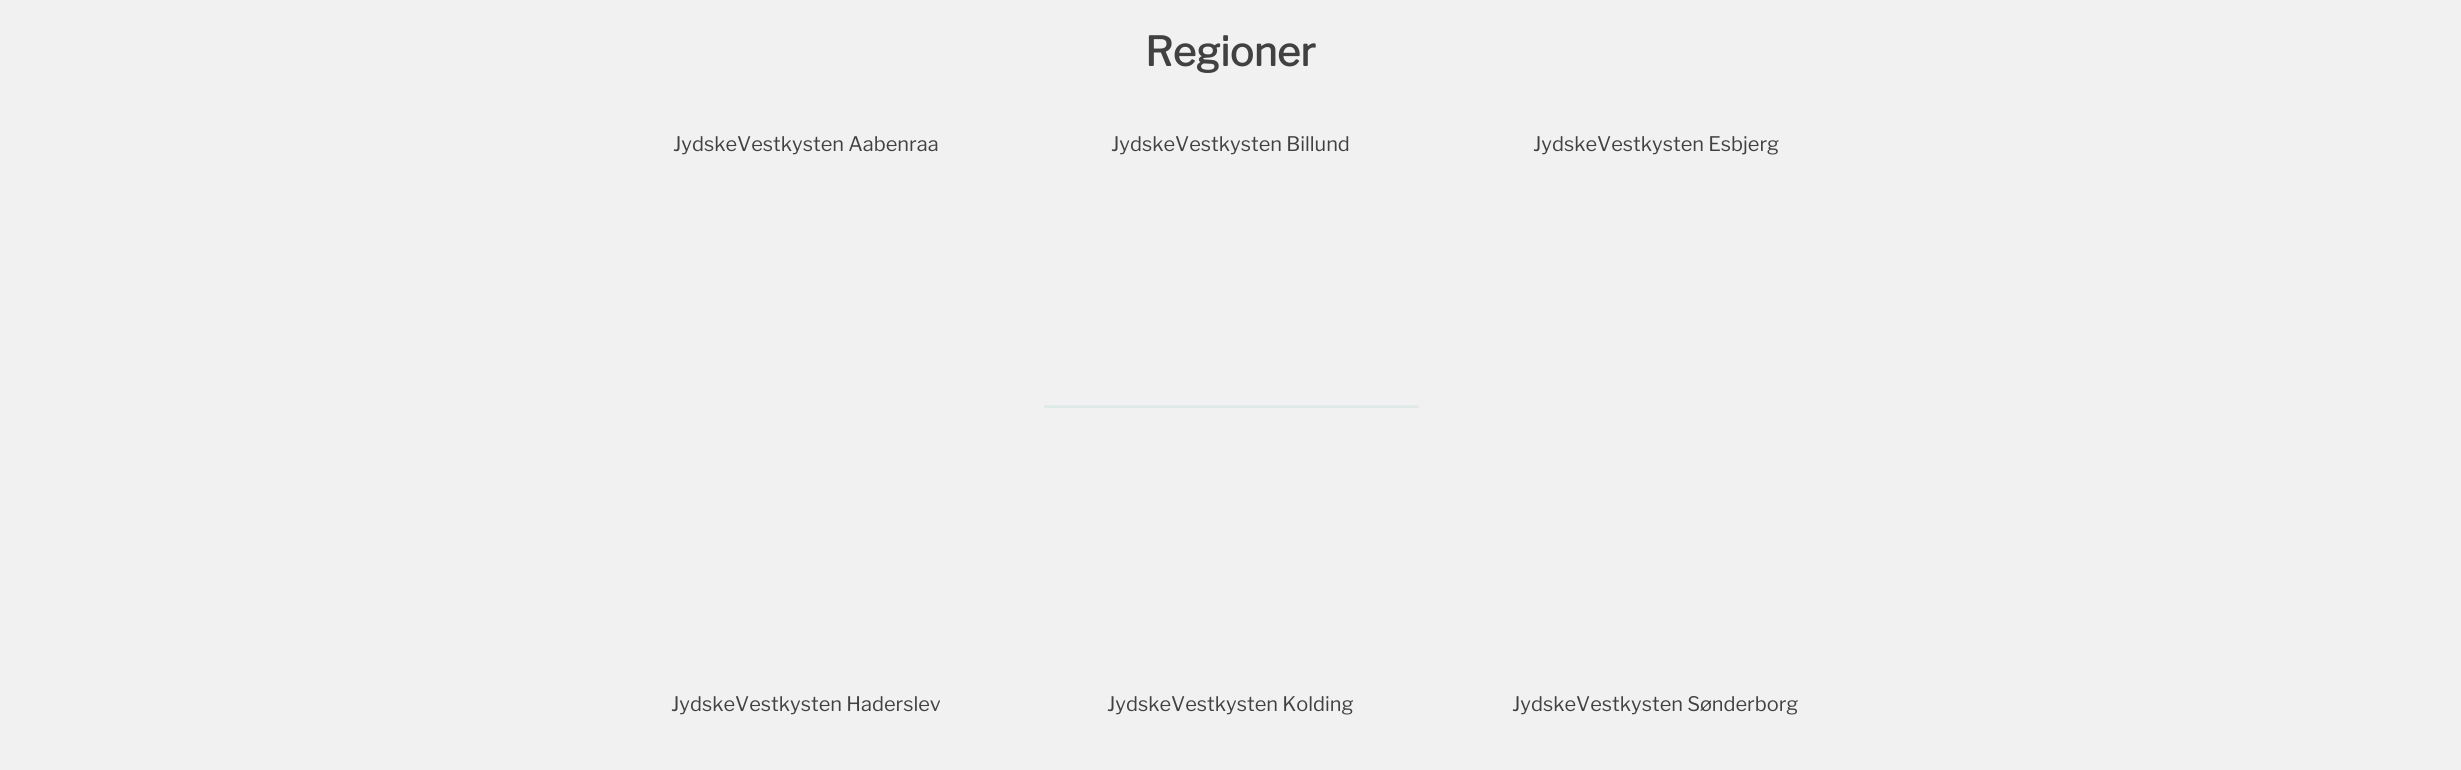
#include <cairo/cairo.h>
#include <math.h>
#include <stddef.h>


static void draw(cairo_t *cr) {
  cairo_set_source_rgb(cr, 241 / 255.0, 241 / 255.0, 241 / 255.0);
  cairo_paint(cr);
  cairo_set_source_rgb(cr, 224 / 255.0, 234 / 255.0, 233 / 255.0);
  cairo_rectangle(cr, 1044, 405, 375, 3);
  cairo_fill(cr);
  cairo_select_font_face(cr, "Libre Franklin", CAIRO_FONT_SLANT_NORMAL, CAIRO_FONT_WEIGHT_BOLD);
  cairo_set_font_size(cr, 40);
  cairo_set_source_rgb(cr, 65 / 255.0, 65 / 255.0, 65 / 255.0);
  cairo_move_to(cr, 1145, 66);
  cairo_show_text(cr, "Regioner");
  cairo_select_font_face(cr, "Libre Franklin Thin", CAIRO_FONT_SLANT_NORMAL, CAIRO_FONT_WEIGHT_NORMAL);
  cairo_set_font_size(cr, 20);
  cairo_move_to(cr, 673, 151);
  cairo_show_text(cr, "JydskeVestkysten Aabenraa");
  cairo_move_to(cr, 1111, 151);
  cairo_show_text(cr, "JydskeVestkysten Billund");
  cairo_move_to(cr, 1533, 151);
  cairo_show_text(cr, "JydskeVestkysten Esbjerg");
  cairo_move_to(cr, 671, 711);
  cairo_show_text(cr, "JydskeVestkysten Haderslev");
  cairo_move_to(cr, 1107, 711);
  cairo_show_text(cr, "JydskeVestkysten Kolding");
  cairo_move_to(cr, 1512, 711);
  cairo_show_text(cr, "JydskeVestkysten Sønderborg");
}

int main(void) {
  cairo_surface_t *surface = cairo_image_surface_create(CAIRO_FORMAT_RGB24, 2461, 770);
  cairo_t *cr = cairo_create(surface);
  cairo_font_options_t *options = cairo_font_options_create();
  cairo_font_options_set_hint_metrics(options, CAIRO_HINT_METRICS_OFF);
  cairo_font_options_set_hint_style(options, CAIRO_HINT_STYLE_NONE);
  cairo_set_font_options(cr, options);
  cairo_set_miter_limit(cr, 4);
  draw(cr);
  cairo_surface_write_to_png(surface, "out.png");
  cairo_font_options_destroy(options);
  cairo_destroy(cr);
  cairo_surface_destroy(surface);
  return 0;
}
